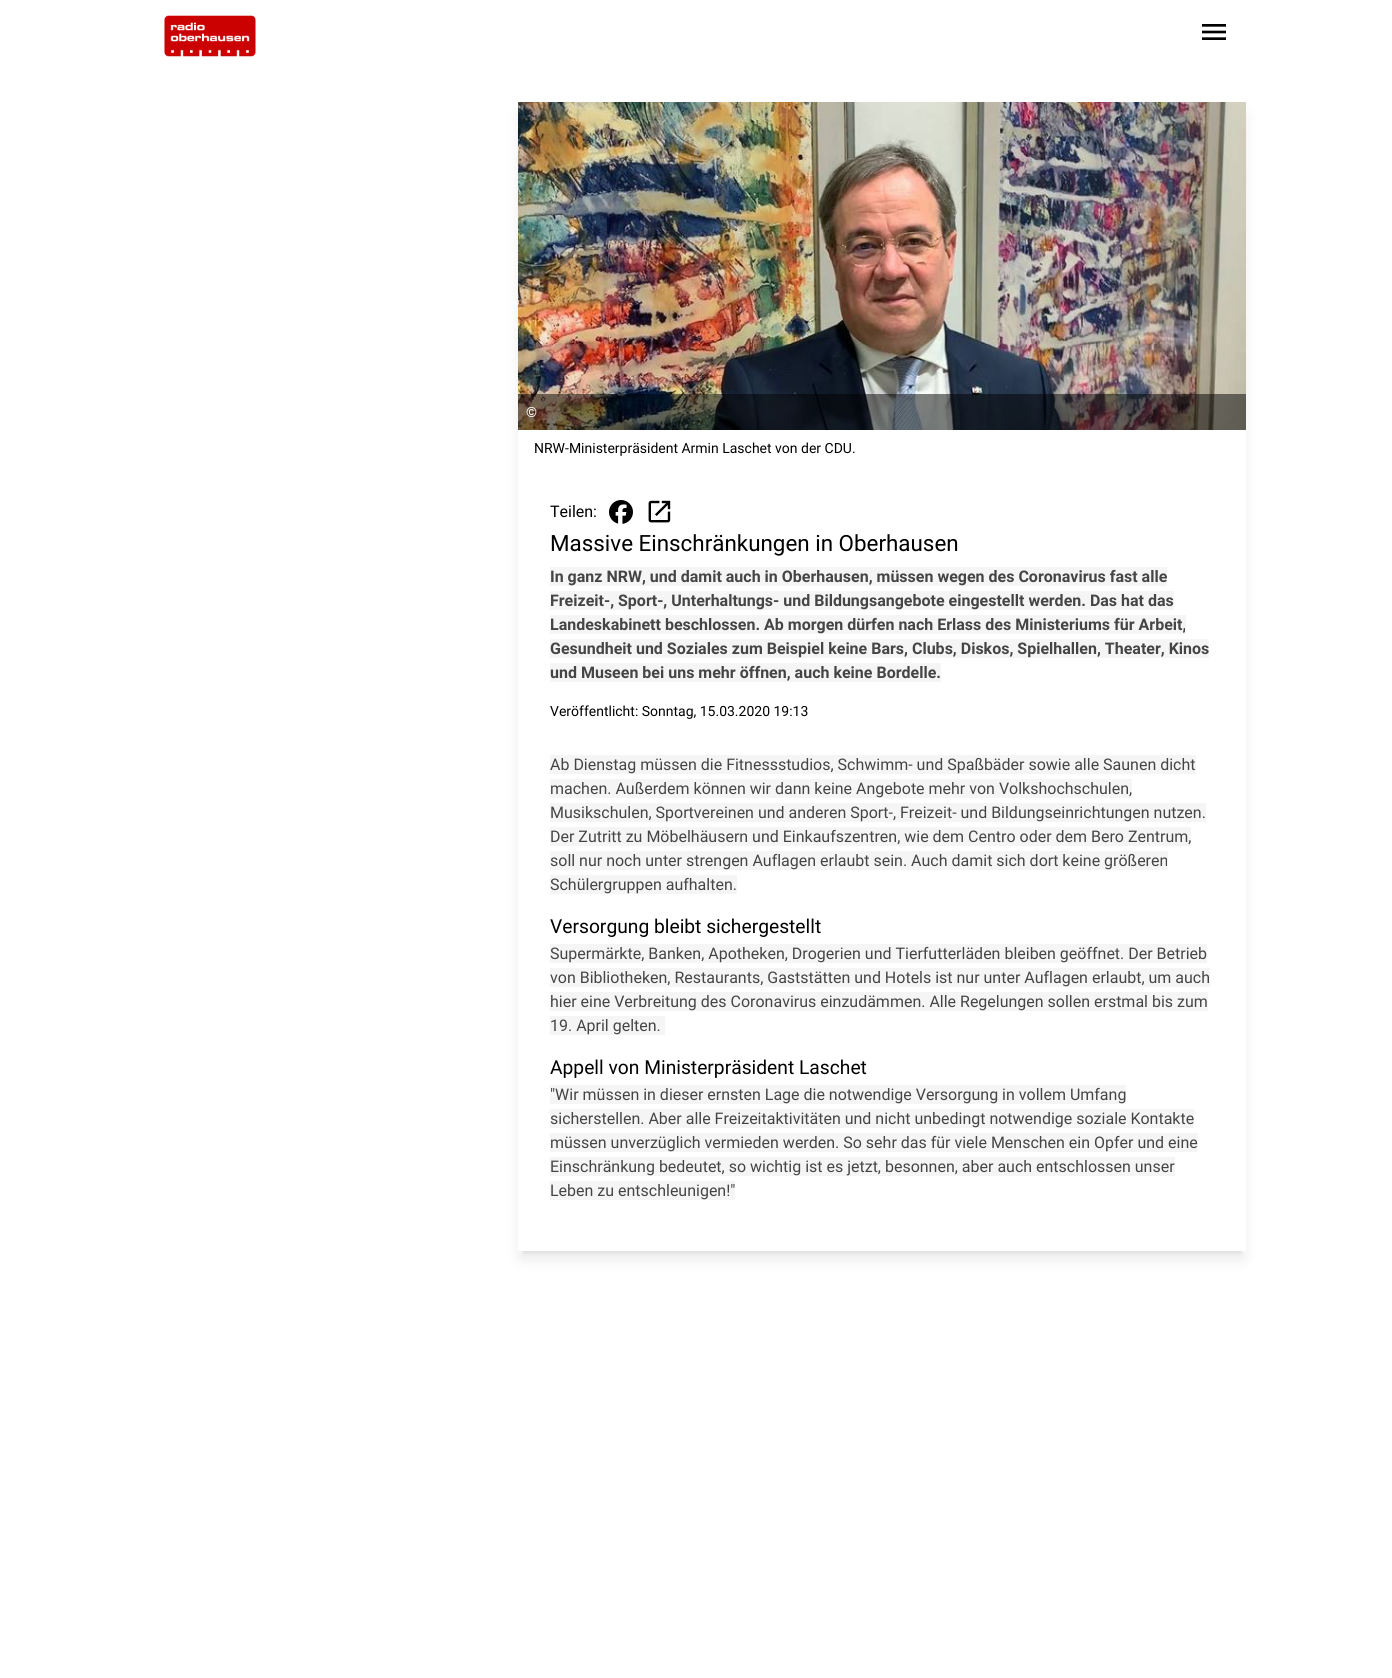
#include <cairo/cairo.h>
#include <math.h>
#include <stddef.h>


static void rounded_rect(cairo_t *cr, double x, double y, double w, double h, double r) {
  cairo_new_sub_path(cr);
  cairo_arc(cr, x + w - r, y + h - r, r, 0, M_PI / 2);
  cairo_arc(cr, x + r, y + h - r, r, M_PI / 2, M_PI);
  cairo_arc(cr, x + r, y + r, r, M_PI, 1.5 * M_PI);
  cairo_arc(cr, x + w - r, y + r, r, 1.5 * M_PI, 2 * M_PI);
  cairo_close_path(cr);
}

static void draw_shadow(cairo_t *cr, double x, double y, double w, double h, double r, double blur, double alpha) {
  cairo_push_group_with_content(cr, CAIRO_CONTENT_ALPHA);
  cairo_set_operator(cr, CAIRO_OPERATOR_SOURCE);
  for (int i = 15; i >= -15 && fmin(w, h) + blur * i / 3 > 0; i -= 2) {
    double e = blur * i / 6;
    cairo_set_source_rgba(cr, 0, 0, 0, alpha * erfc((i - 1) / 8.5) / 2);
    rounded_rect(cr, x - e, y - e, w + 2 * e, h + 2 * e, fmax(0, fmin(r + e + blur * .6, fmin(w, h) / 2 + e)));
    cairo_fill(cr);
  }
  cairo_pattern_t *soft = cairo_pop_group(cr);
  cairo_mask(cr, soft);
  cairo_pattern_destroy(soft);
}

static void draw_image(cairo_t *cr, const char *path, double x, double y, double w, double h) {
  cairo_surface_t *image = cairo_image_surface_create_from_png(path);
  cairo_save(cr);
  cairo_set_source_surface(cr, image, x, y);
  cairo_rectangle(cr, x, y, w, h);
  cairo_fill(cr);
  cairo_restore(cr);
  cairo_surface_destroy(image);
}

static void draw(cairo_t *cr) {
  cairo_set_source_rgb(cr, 1, 1, 1);
  cairo_paint(cr);
  draw_image(cr, "images/1.png", 164, 15, 92, 42);
  draw_image(cr, "images/2.png", 1202, 24, 24, 16);
  cairo_save(cr);
  cairo_rectangle(cr, 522, 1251, 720, 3);
  cairo_clip(cr);
  cairo_set_source_rgb(cr, 0, 0, 0);
  draw_shadow(cr, 522, 110, 720, 1141, 0, 3, 0.1);
  cairo_restore(cr);
  cairo_save(cr);
  cairo_set_fill_rule(cr, CAIRO_FILL_RULE_EVEN_ODD);
  cairo_new_path(cr);
  cairo_move_to(cr, 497, 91);
  cairo_line_to(cr, 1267, 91);
  cairo_line_to(cr, 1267, 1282);
  cairo_line_to(cr, 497, 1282);
  cairo_close_path(cr);
  cairo_move_to(cr, 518, 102);
  cairo_line_to(cr, 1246, 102);
  cairo_line_to(cr, 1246, 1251);
  cairo_line_to(cr, 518, 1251);
  cairo_close_path(cr);
  cairo_clip(cr);
  cairo_set_source_rgb(cr, 0, 0, 0);
  draw_shadow(cr, 521, 115, 722, 1143, 0, 7.5, 0.1);
  cairo_restore(cr);
  draw_image(cr, "images/3.png", 518, 102, 728, 328);
  cairo_set_source_rgba(cr, 0, 0, 0, 0.5);
  cairo_rectangle(cr, 518, 394, 728, 36);
  cairo_fill(cr);
  draw_image(cr, "images/4.png", 609, 500, 24, 24);
  draw_image(cr, "images/5.png", 648, 500, 23, 23);
  cairo_set_source_rgb(cr, 245 / 255.0, 245 / 255.0, 245 / 255.0);
  cairo_rectangle(cr, 550, 567, 617, 19);
  cairo_fill(cr);
  cairo_rectangle(cr, 550, 591, 624, 19);
  cairo_fill(cr);
  cairo_rectangle(cr, 550, 615, 636, 19);
  cairo_fill(cr);
  cairo_rectangle(cr, 550, 639, 659, 19);
  cairo_fill(cr);
  cairo_rectangle(cr, 550, 663, 391, 19);
  cairo_fill(cr);
  cairo_rectangle(cr, 550, 755, 646, 19);
  cairo_fill(cr);
  cairo_rectangle(cr, 550, 779, 582, 19);
  cairo_fill(cr);
  cairo_rectangle(cr, 550, 803, 656, 19);
  cairo_fill(cr);
  cairo_rectangle(cr, 550, 827, 641, 19);
  cairo_fill(cr);
  cairo_rectangle(cr, 550, 851, 618, 19);
  cairo_fill(cr);
  cairo_rectangle(cr, 550, 875, 187, 19);
  cairo_fill(cr);
  cairo_rectangle(cr, 550, 944, 657, 19);
  cairo_fill(cr);
  cairo_rectangle(cr, 550, 968, 660, 19);
  cairo_fill(cr);
  cairo_rectangle(cr, 550, 992, 658, 19);
  cairo_fill(cr);
  cairo_rectangle(cr, 550, 1016, 115, 19);
  cairo_fill(cr);
  cairo_rectangle(cr, 550, 1085, 576, 19);
  cairo_fill(cr);
  cairo_rectangle(cr, 550, 1109, 644, 19);
  cairo_fill(cr);
  cairo_rectangle(cr, 550, 1133, 648, 19);
  cairo_fill(cr);
  cairo_rectangle(cr, 550, 1157, 625, 19);
  cairo_fill(cr);
  cairo_rectangle(cr, 550, 1181, 185, 19);
  cairo_fill(cr);
  cairo_select_font_face(cr, "Roboto", CAIRO_FONT_SLANT_NORMAL, CAIRO_FONT_WEIGHT_NORMAL);
  cairo_set_font_size(cr, 14);
  cairo_set_source_rgb(cr, 1, 1, 1);
  cairo_move_to(cr, 526, 417);
  cairo_show_text(cr, "©");
  cairo_set_source_rgb(cr, 0, 0, 0);
  cairo_move_to(cr, 534, 453);
  cairo_show_text(cr, "NRW-Ministerpräsident Armin Laschet von der CDU.");
  cairo_set_font_size(cr, 16);
  cairo_move_to(cr, 550, 517);
  cairo_show_text(cr, "Teilen:");
  cairo_set_font_size(cr, 22.4);
  cairo_move_to(cr, 550, 551);
  cairo_show_text(cr, "Massive Einschränkungen in Oberhausen");
  cairo_select_font_face(cr, "Roboto", CAIRO_FONT_SLANT_NORMAL, CAIRO_FONT_WEIGHT_BOLD);
  cairo_set_font_size(cr, 16);
  cairo_set_source_rgb(cr, 69 / 255.0, 69 / 255.0, 69 / 255.0);
  cairo_move_to(cr, 550, 582);
  cairo_show_text(cr, "In ganz NRW, und damit auch in Oberhausen, müssen wegen des Coronavirus fast alle");
  cairo_move_to(cr, 550, 606);
  cairo_show_text(cr, "Freizeit-, Sport-, Unterhaltungs- und Bildungsangebote eingestellt werden. Das hat das");
  cairo_move_to(cr, 550, 630);
  cairo_show_text(cr, "Landeskabinett beschlossen. Ab morgen dürfen nach Erlass des Ministeriums für Arbeit,");
  cairo_move_to(cr, 550, 654);
  cairo_show_text(cr, "Gesundheit und Soziales zum Beispiel keine Bars, Clubs, Diskos, Spielhallen, Theater, Kinos");
  cairo_move_to(cr, 550, 678);
  cairo_show_text(cr, "und Museen bei uns mehr öffnen, auch keine Bordelle.");
  cairo_select_font_face(cr, "Roboto", CAIRO_FONT_SLANT_NORMAL, CAIRO_FONT_WEIGHT_NORMAL);
  cairo_set_font_size(cr, 14);
  cairo_set_source_rgb(cr, 0, 0, 0);
  cairo_move_to(cr, 550, 716);
  cairo_show_text(cr, "Veröffentlicht: Sonntag, 15.03.2020 19:13");
  cairo_set_font_size(cr, 16);
  cairo_set_source_rgb(cr, 69 / 255.0, 69 / 255.0, 69 / 255.0);
  cairo_move_to(cr, 550, 770);
  cairo_show_text(cr, "Ab Dienstag müssen die Fitnessstudios, Schwimm- und Spaßbäder sowie alle Saunen dicht");
  cairo_move_to(cr, 550, 794);
  cairo_show_text(cr, "machen. Außerdem können wir dann keine Angebote mehr von Volkshochschulen,");
  cairo_move_to(cr, 550, 818);
  cairo_show_text(cr, "Musikschulen, Sportvereinen und anderen Sport-, Freizeit- und Bildungseinrichtungen nutzen.");
  cairo_move_to(cr, 550, 842);
  cairo_show_text(cr, "Der Zutritt zu Möbelhäusern und Einkaufszentren, wie dem Centro oder dem Bero Zentrum,");
  cairo_move_to(cr, 550, 866);
  cairo_show_text(cr, "soll nur noch unter strengen Auflagen erlaubt sein. Auch damit sich dort keine größeren");
  cairo_move_to(cr, 550, 890);
  cairo_show_text(cr, "Schülergruppen aufhalten.");
  cairo_set_font_size(cr, 19.25);
  cairo_set_source_rgb(cr, 0, 0, 0);
  cairo_move_to(cr, 550, 933);
  cairo_show_text(cr, "Versorgung bleibt sichergestellt");
  cairo_set_font_size(cr, 16);
  cairo_set_source_rgb(cr, 69 / 255.0, 69 / 255.0, 69 / 255.0);
  cairo_move_to(cr, 550, 959);
  cairo_show_text(cr, "Supermärkte, Banken, Apotheken, Drogerien und Tierfutterläden bleiben geöffnet. Der Betrieb");
  cairo_move_to(cr, 550, 983);
  cairo_show_text(cr, "von Bibliotheken, Restaurants, Gaststätten und Hotels ist nur unter Auflagen erlaubt, um auch");
  cairo_move_to(cr, 550, 1007);
  cairo_show_text(cr, "hier eine Verbreitung des Coronavirus einzudämmen. Alle Regelungen sollen erstmal bis zum");
  cairo_move_to(cr, 550, 1031);
  cairo_show_text(cr, "19. April gelten.");
  cairo_set_font_size(cr, 19.25);
  cairo_set_source_rgb(cr, 0, 0, 0);
  cairo_move_to(cr, 550, 1074);
  cairo_show_text(cr, "Appell von Ministerpräsident Laschet");
  cairo_set_font_size(cr, 16);
  cairo_set_source_rgb(cr, 69 / 255.0, 69 / 255.0, 69 / 255.0);
  cairo_move_to(cr, 550, 1100);
  cairo_show_text(cr, "\"Wir müssen in dieser ernsten Lage die notwendige Versorgung in vollem Umfang");
  cairo_move_to(cr, 550, 1124);
  cairo_show_text(cr, "sicherstellen. Aber alle Freizeitaktivitäten und nicht unbedingt notwendige soziale Kontakte");
  cairo_move_to(cr, 550, 1148);
  cairo_show_text(cr, "müssen unverzüglich vermieden werden. So sehr das für viele Menschen ein Opfer und eine");
  cairo_move_to(cr, 550, 1172);
  cairo_show_text(cr, "Einschränkung bedeutet, so wichtig ist es jetzt, besonnen, aber auch entschlossen unser");
  cairo_move_to(cr, 550, 1196);
  cairo_show_text(cr, "Leben zu entschleunigen!\"");
}

int main(void) {
  cairo_surface_t *surface = cairo_image_surface_create(CAIRO_FORMAT_RGB24, 1392, 1678);
  cairo_t *cr = cairo_create(surface);
  cairo_font_options_t *options = cairo_font_options_create();
  cairo_font_options_set_hint_metrics(options, CAIRO_HINT_METRICS_OFF);
  cairo_font_options_set_hint_style(options, CAIRO_HINT_STYLE_NONE);
  cairo_set_font_options(cr, options);
  cairo_set_miter_limit(cr, 4);
  draw(cr);
  cairo_surface_write_to_png(surface, "out.png");
  cairo_font_options_destroy(options);
  cairo_destroy(cr);
  cairo_surface_destroy(surface);
  return 0;
}
